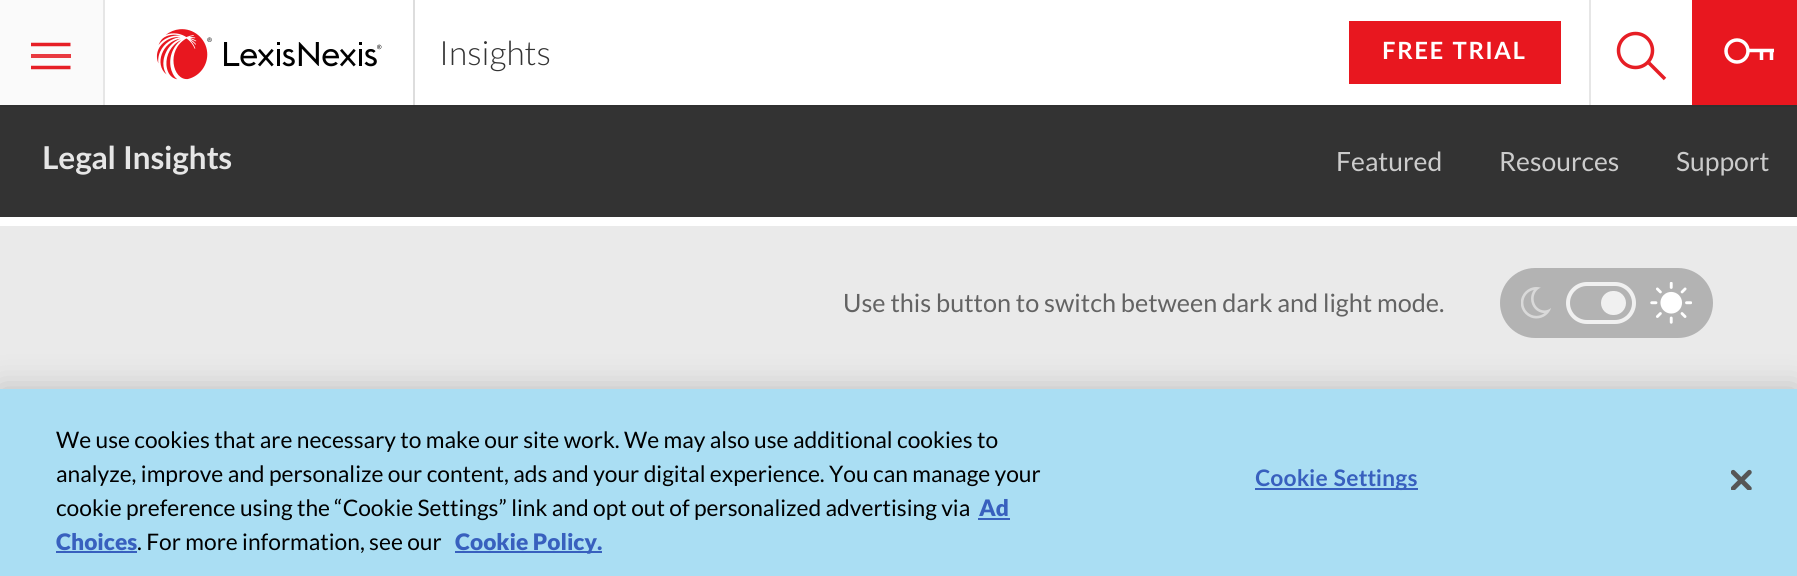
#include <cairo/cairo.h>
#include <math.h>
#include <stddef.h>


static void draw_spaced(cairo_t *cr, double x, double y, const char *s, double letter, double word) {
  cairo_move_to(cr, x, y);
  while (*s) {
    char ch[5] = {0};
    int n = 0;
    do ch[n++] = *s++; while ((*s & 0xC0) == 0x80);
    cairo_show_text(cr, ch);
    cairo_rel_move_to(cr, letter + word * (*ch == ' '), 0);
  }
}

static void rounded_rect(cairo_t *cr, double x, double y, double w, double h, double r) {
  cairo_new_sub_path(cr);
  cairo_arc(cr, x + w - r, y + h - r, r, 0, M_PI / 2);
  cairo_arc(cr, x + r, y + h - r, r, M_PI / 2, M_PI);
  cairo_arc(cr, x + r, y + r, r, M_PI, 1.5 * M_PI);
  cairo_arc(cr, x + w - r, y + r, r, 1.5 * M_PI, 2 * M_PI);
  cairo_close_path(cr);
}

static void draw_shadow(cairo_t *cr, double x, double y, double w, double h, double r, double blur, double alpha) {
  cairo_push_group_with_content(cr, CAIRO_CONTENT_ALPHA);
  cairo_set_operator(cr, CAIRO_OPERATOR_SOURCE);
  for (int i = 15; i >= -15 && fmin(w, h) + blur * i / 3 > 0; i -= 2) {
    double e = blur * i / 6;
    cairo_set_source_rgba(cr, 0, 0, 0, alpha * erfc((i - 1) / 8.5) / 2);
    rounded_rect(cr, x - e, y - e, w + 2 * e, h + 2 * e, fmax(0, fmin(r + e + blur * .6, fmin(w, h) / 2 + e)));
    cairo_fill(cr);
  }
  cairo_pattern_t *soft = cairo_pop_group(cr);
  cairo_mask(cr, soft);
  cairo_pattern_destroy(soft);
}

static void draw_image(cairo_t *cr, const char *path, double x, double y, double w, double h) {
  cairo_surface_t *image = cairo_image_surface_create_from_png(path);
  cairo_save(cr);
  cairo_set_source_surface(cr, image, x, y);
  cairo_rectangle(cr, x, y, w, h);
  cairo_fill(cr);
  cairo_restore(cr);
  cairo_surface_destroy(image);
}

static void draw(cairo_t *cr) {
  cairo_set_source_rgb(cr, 1, 1, 1);
  cairo_paint(cr);
  cairo_set_source_rgb(cr, 250 / 255.0, 250 / 255.0, 250 / 255.0);
  cairo_rectangle(cr, 0, 0, 103, 105);
  cairo_fill(cr);
  cairo_set_source_rgb(cr, 230 / 255.0, 230 / 255.0, 230 / 255.0);
  cairo_rectangle(cr, 103, 0, 2, 105);
  cairo_fill(cr);
  cairo_new_path(cr);
  cairo_move_to(cr, 31, 44.5);
  cairo_line_to(cr, 70.5, 44.5);
  cairo_set_source_rgb(cr, 230 / 255.0, 30 / 255.0, 37 / 255.0);
  cairo_set_line_width(cr, 3.5);
  cairo_stroke(cr);
  cairo_set_source_rgb(cr, 233 / 255.0, 58 / 255.0, 64 / 255.0);
  cairo_rectangle(cr, 31, 54, 40, 4);
  cairo_fill(cr);
  cairo_new_path(cr);
  cairo_move_to(cr, 31, 67.5);
  cairo_line_to(cr, 70.5, 67.5);
  cairo_set_source_rgb(cr, 230 / 255.0, 30 / 255.0, 37 / 255.0);
  cairo_stroke(cr);
  cairo_set_source_rgb(cr, 230 / 255.0, 230 / 255.0, 230 / 255.0);
  cairo_rectangle(cr, 1589, 0, 2, 105);
  cairo_fill(cr);
  cairo_arc(cr, 1635.5, 50.5, 17, 0, 2 * M_PI);
  cairo_set_source_rgb(cr, 230 / 255.0, 30 / 255.0, 37 / 255.0);
  cairo_stroke(cr);
  cairo_new_path(cr);
  cairo_move_to(cr, 1649, 63);
  cairo_line_to(cr, 1665, 79);
  cairo_stroke(cr);
  cairo_set_source_rgb(cr, 232 / 255.0, 23 / 255.0, 31 / 255.0);
  cairo_rectangle(cr, 1692, 0, 105, 105);
  cairo_fill(cr);
  cairo_arc(cr, 1737, 51, 11, 0, 2 * M_PI);
  cairo_set_source_rgb(cr, 1, 1, 1);
  cairo_stroke(cr);
  cairo_new_path(cr);
  cairo_move_to(cr, 1749, 50.5);
  cairo_line_to(cr, 1774, 50.5);
  cairo_move_to(cr, 1761.5, 50.5);
  cairo_line_to(cr, 1761.5, 60);
  cairo_move_to(cr, 1771.5, 50.5);
  cairo_line_to(cr, 1771.5, 60);
  cairo_stroke(cr);
  draw_image(cr, "images/1.png", 156, 29, 226, 51);
  cairo_set_source_rgb(cr, 221 / 255.0, 221 / 255.0, 221 / 255.0);
  cairo_rectangle(cr, 413, 0, 2, 105);
  cairo_fill(cr);
  cairo_set_source_rgb(cr, 232 / 255.0, 23 / 255.0, 31 / 255.0);
  cairo_rectangle(cr, 1349, 21, 212, 63);
  cairo_fill(cr);
  cairo_set_source_rgb(cr, 51 / 255.0, 51 / 255.0, 51 / 255.0);
  cairo_rectangle(cr, 0, 105, 1797, 112);
  cairo_fill(cr);
  cairo_set_source_rgb(cr, 48 / 255.0, 48 / 255.0, 48 / 255.0);
  rounded_rect(cr, 0, 105, 1797, 2, 1);
  cairo_fill(cr);
  cairo_set_source_rgb(cr, 234 / 255.0, 234 / 255.0, 234 / 255.0);
  cairo_rectangle(cr, 0, 226, 1797, 163);
  cairo_fill(cr);
  cairo_set_source_rgb(cr, 179 / 255.0, 179 / 255.0, 179 / 255.0);
  rounded_rect(cr, 1500, 268, 213, 70, 35);
  cairo_fill(cr);
  draw_image(cr, "images/2.png", 1521, 287, 30, 32);
  rounded_rect(cr, 1568, 284, 66, 38, 19);
  cairo_set_source_rgb(cr, 240 / 255.0, 240 / 255.0, 240 / 255.0);
  cairo_set_line_width(cr, 4);
  cairo_stroke(cr);
  rounded_rect(cr, 1601, 291, 25, 24, 12);
  cairo_fill(cr);
  draw_image(cr, "images/3.png", 1650, 282, 42, 42);
  cairo_set_source_rgb(cr, 0, 0, 0);
  draw_shadow(cr, 0, 389, 1797, 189, 0, 16, 0.2);
  cairo_set_source_rgb(cr, 170 / 255.0, 222 / 255.0, 243 / 255.0);
  cairo_rectangle(cr, 0, 389, 1797, 187);
  cairo_fill(cr);
  cairo_set_source_rgb(cr, 56 / 255.0, 96 / 255.0, 190 / 255.0);
  cairo_rectangle(cr, 978, 518, 32, 2);
  cairo_fill(cr);
  cairo_rectangle(cr, 56, 551, 81, 2);
  cairo_fill(cr);
  cairo_rectangle(cr, 455, 551, 147, 2);
  cairo_fill(cr);
  cairo_rectangle(cr, 1255, 488, 163, 2);
  cairo_fill(cr);
  draw_image(cr, "images/4.png", 1731, 469, 21, 21);
  cairo_select_font_face(cr, "Lato Light", CAIRO_FONT_SLANT_NORMAL, CAIRO_FONT_WEIGHT_NORMAL);
  cairo_set_font_size(cr, 33.5);
  cairo_set_source_rgb(cr, 51 / 255.0, 51 / 255.0, 51 / 255.0);
  cairo_move_to(cr, 439, 65);
  cairo_show_text(cr, "Insights");
  cairo_select_font_face(cr, "Lato", CAIRO_FONT_SLANT_NORMAL, CAIRO_FONT_WEIGHT_BOLD);
  cairo_set_font_size(cr, 23.75);
  cairo_set_source_rgb(cr, 1, 1, 1);
  draw_spaced(cr, 1382, 59, "FREE TRIAL", 1.75, 0);
  cairo_set_font_size(cr, 31.5);
  cairo_set_source_rgb(cr, 230 / 255.0, 230 / 255.0, 230 / 255.0);
  cairo_move_to(cr, 42, 169);
  cairo_show_text(cr, "Legal Insights");
  cairo_select_font_face(cr, "Lato", CAIRO_FONT_SLANT_NORMAL, CAIRO_FONT_WEIGHT_NORMAL);
  cairo_set_font_size(cr, 26.5);
  cairo_set_source_rgb(cr, 204 / 255.0, 204 / 255.0, 204 / 255.0);
  cairo_move_to(cr, 1336, 171);
  cairo_show_text(cr, "Featured");
  cairo_move_to(cr, 1499, 171);
  cairo_show_text(cr, "Resources");
  cairo_move_to(cr, 1676, 171);
  cairo_show_text(cr, "Support");
  cairo_set_font_size(cr, 25.2);
  cairo_set_source_rgb(cr, 99 / 255.0, 99 / 255.0, 99 / 255.0);
  cairo_move_to(cr, 843, 312);
  cairo_show_text(cr, "Use this button to switch between dark and light mode.");
  cairo_set_font_size(cr, 22.75);
  cairo_set_source_rgb(cr, 0, 0, 0);
  cairo_move_to(cr, 56, 448);
  cairo_show_text(cr, "We use cookies that are necessary to make our site work. We may also use additional cookies to");
  cairo_move_to(cr, 56, 482);
  cairo_show_text(cr, "analyze, improve and personalize our content, ads and your digital experience. You can manage your");
  cairo_move_to(cr, 56, 516);
  cairo_show_text(cr, "cookie preference using the “Cookie Settings” link and opt out of personalized advertising via");
  cairo_select_font_face(cr, "Lato Black", CAIRO_FONT_SLANT_NORMAL, CAIRO_FONT_WEIGHT_NORMAL);
  cairo_set_source_rgb(cr, 56 / 255.0, 96 / 255.0, 190 / 255.0);
  cairo_move_to(cr, 979, 516);
  cairo_show_text(cr, "Ad");
  cairo_move_to(cr, 56, 550);
  cairo_show_text(cr, "Choices");
  cairo_select_font_face(cr, "Lato", CAIRO_FONT_SLANT_NORMAL, CAIRO_FONT_WEIGHT_NORMAL);
  cairo_set_source_rgb(cr, 0, 0, 0);
  cairo_move_to(cr, 137, 550);
  cairo_show_text(cr, ". For more information, see our");
  cairo_select_font_face(cr, "Lato Black", CAIRO_FONT_SLANT_NORMAL, CAIRO_FONT_WEIGHT_NORMAL);
  cairo_set_source_rgb(cr, 56 / 255.0, 96 / 255.0, 190 / 255.0);
  cairo_move_to(cr, 455, 550);
  cairo_show_text(cr, "Cookie Policy.");
  cairo_select_font_face(cr, "Lato", CAIRO_FONT_SLANT_NORMAL, CAIRO_FONT_WEIGHT_BOLD);
  draw_spaced(cr, 1255, 486, "Cookie Settings", 0.25, 0);
}

int main(void) {
  cairo_surface_t *surface = cairo_image_surface_create(CAIRO_FORMAT_RGB24, 1797, 576);
  cairo_t *cr = cairo_create(surface);
  cairo_font_options_t *options = cairo_font_options_create();
  cairo_font_options_set_hint_metrics(options, CAIRO_HINT_METRICS_OFF);
  cairo_font_options_set_hint_style(options, CAIRO_HINT_STYLE_NONE);
  cairo_set_font_options(cr, options);
  cairo_set_miter_limit(cr, 4);
  draw(cr);
  cairo_surface_write_to_png(surface, "out.png");
  cairo_font_options_destroy(options);
  cairo_destroy(cr);
  cairo_surface_destroy(surface);
  return 0;
}
